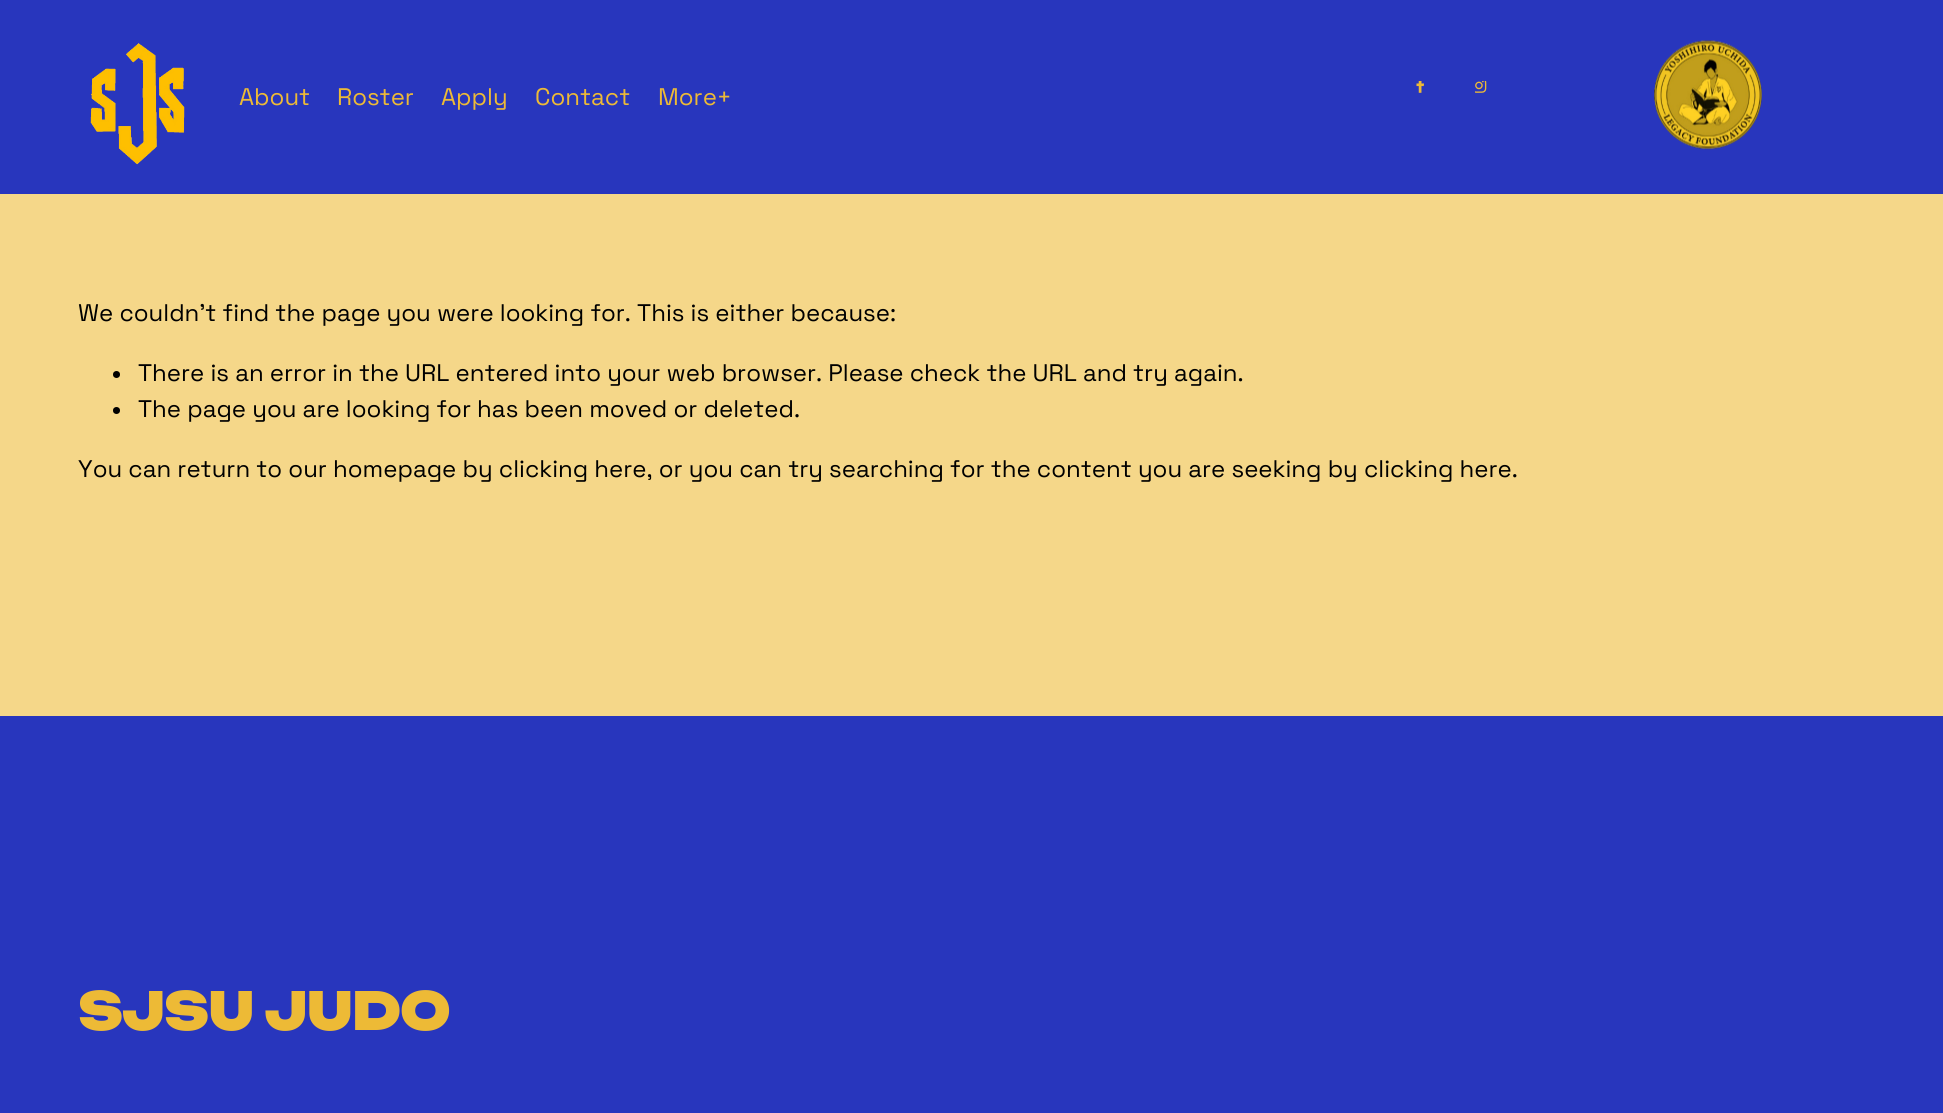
#include <cairo/cairo.h>
#include <math.h>
#include <stddef.h>


static void draw_spaced(cairo_t *cr, double x, double y, const char *s, double letter, double word) {
  cairo_move_to(cr, x, y);
  while (*s) {
    char ch[5] = {0};
    int n = 0;
    do ch[n++] = *s++; while ((*s & 0xC0) == 0x80);
    cairo_show_text(cr, ch);
    cairo_rel_move_to(cr, letter + word * (*ch == ' '), 0);
  }
}

static void draw_image(cairo_t *cr, const char *path, double x, double y, double w, double h) {
  cairo_surface_t *image = cairo_image_surface_create_from_png(path);
  cairo_save(cr);
  cairo_set_source_surface(cr, image, x, y);
  cairo_rectangle(cr, x, y, w, h);
  cairo_fill(cr);
  cairo_restore(cr);
  cairo_surface_destroy(image);
}

static void draw(cairo_t *cr) {
  cairo_set_source_rgb(cr, 245 / 255.0, 215 / 255.0, 137 / 255.0);
  cairo_paint(cr);
  cairo_set_source_rgb(cr, 40 / 255.0, 54 / 255.0, 189 / 255.0);
  cairo_rectangle(cr, 0, 0, 1943, 194);
  cairo_fill(cr);
  draw_image(cr, "images/1.png", 90, 43, 95, 122);
  draw_image(cr, "images/2.png", 1416, 81, 8, 12);
  draw_image(cr, "images/3.png", 1475, 81, 12, 12);
  draw_image(cr, "images/4.png", 1654, 40, 108, 110);
  cairo_set_source_rgb(cr, 0, 0, 0);
  cairo_arc(cr, 116.5, 374.5, 3.5, 0, 2 * M_PI);
  cairo_fill(cr);
  cairo_arc(cr, 116.5, 410.5, 3.5, 0, 2 * M_PI);
  cairo_fill(cr);
  cairo_set_source_rgb(cr, 40 / 255.0, 54 / 255.0, 189 / 255.0);
  cairo_rectangle(cr, 0, 716, 1943, 397);
  cairo_fill(cr);
  cairo_select_font_face(cr, "Space Grotesk", CAIRO_FONT_SLANT_NORMAL, CAIRO_FONT_WEIGHT_NORMAL);
  cairo_set_font_size(cr, 24);
  cairo_set_source_rgb(cr, 237 / 255.0, 186 / 255.0, 54 / 255.0);
  cairo_move_to(cr, 239, 105);
  cairo_show_text(cr, "About");
  cairo_move_to(cr, 337, 105);
  cairo_show_text(cr, "Roster");
  cairo_move_to(cr, 441, 105);
  cairo_show_text(cr, "Apply");
  cairo_move_to(cr, 535, 105);
  cairo_show_text(cr, "Contact");
  cairo_move_to(cr, 658, 105);
  cairo_show_text(cr, "More+");
  cairo_set_source_rgb(cr, 0, 0, 0);
  cairo_move_to(cr, 78, 321);
  cairo_show_text(cr, "We couldn't find the page you were looking for. This is either because:");
  cairo_move_to(cr, 138, 381);
  cairo_show_text(cr, "There is an error in the URL entered into your web browser. Please check the URL and try again.");
  cairo_move_to(cr, 138, 417);
  cairo_show_text(cr, "The page you are looking for has been moved or deleted.");
  cairo_move_to(cr, 78, 477);
  cairo_show_text(cr, "You can return to our homepage by clicking here, or you can try searching for the content you are seeking by clicking here.");
  cairo_select_font_face(cr, "Unbounded Black", CAIRO_FONT_SLANT_NORMAL, CAIRO_FONT_WEIGHT_NORMAL);
  cairo_set_font_size(cr, 52);
  cairo_set_source_rgb(cr, 237 / 255.0, 186 / 255.0, 54 / 255.0);
  draw_spaced(cr, 78, 1030, "SJSU JUDO", -1, 0);
}

int main(void) {
  cairo_surface_t *surface = cairo_image_surface_create(CAIRO_FORMAT_RGB24, 1943, 1113);
  cairo_t *cr = cairo_create(surface);
  cairo_font_options_t *options = cairo_font_options_create();
  cairo_font_options_set_hint_metrics(options, CAIRO_HINT_METRICS_OFF);
  cairo_font_options_set_hint_style(options, CAIRO_HINT_STYLE_NONE);
  cairo_set_font_options(cr, options);
  cairo_set_miter_limit(cr, 4);
  draw(cr);
  cairo_surface_write_to_png(surface, "out.png");
  cairo_font_options_destroy(options);
  cairo_destroy(cr);
  cairo_surface_destroy(surface);
  return 0;
}
